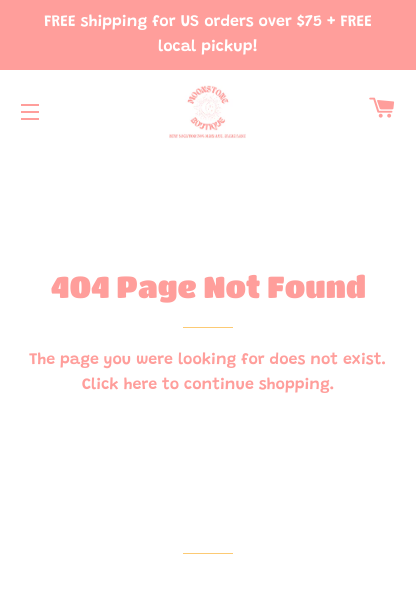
#include <cairo/cairo.h>
#include <math.h>
#include <stddef.h>


static void draw_image(cairo_t *cr, const char *path, double x, double y, double w, double h) {
  cairo_surface_t *image = cairo_image_surface_create_from_png(path);
  cairo_save(cr);
  cairo_set_source_surface(cr, image, x, y);
  cairo_rectangle(cr, x, y, w, h);
  cairo_fill(cr);
  cairo_restore(cr);
  cairo_surface_destroy(image);
}

static void draw(cairo_t *cr) {
  cairo_set_source_rgb(cr, 1, 1, 1);
  cairo_paint(cr);
  cairo_set_source_rgb(cr, 1, 158 / 255.0, 155 / 255.0);
  cairo_rectangle(cr, 0, 0, 416, 70);
  cairo_fill(cr);
  cairo_rectangle(cr, 21, 104, 18, 2);
  cairo_fill(cr);
  cairo_rectangle(cr, 21, 111, 18, 2);
  cairo_fill(cr);
  cairo_rectangle(cr, 21, 118, 18, 2);
  cairo_fill(cr);
  draw_image(cr, "images/1.png", 169, 85, 77, 54);
  draw_image(cr, "images/2.png", 369, 97, 26, 21);
  cairo_set_source_rgb(cr, 252 / 255.0, 202 / 255.0, 116 / 255.0);
  cairo_rectangle(cr, 183, 327, 50, 1);
  cairo_fill(cr);
  cairo_rectangle(cr, 183, 553, 50, 1);
  cairo_fill(cr);
  cairo_select_font_face(cr, "Grandstander SemiBold", CAIRO_FONT_SLANT_NORMAL, CAIRO_FONT_WEIGHT_NORMAL);
  cairo_set_font_size(cr, 16);
  cairo_set_source_rgb(cr, 1, 1, 1);
  cairo_move_to(cr, 44, 26);
  cairo_show_text(cr, "FREE shipping for US orders over $75 + FREE");
  cairo_move_to(cr, 158, 51);
  cairo_show_text(cr, "local pickup!");
  cairo_select_font_face(cr, "Titan One", CAIRO_FONT_SLANT_NORMAL, CAIRO_FONT_WEIGHT_NORMAL);
  cairo_set_font_size(cr, 30);
  cairo_set_source_rgb(cr, 1, 158 / 255.0, 155 / 255.0);
  cairo_move_to(cr, 51, 298);
  cairo_show_text(cr, "404 Page Not Found");
  cairo_select_font_face(cr, "Grandstander SemiBold", CAIRO_FONT_SLANT_NORMAL, CAIRO_FONT_WEIGHT_NORMAL);
  cairo_set_font_size(cr, 16);
  cairo_move_to(cr, 29, 364);
  cairo_show_text(cr, "The page you were looking for does not exist.");
  cairo_move_to(cr, 82, 389);
  cairo_show_text(cr, "Click here to continue shopping.");
}

int main(void) {
  cairo_surface_t *surface = cairo_image_surface_create(CAIRO_FORMAT_RGB24, 416, 593);
  cairo_t *cr = cairo_create(surface);
  cairo_font_options_t *options = cairo_font_options_create();
  cairo_font_options_set_hint_metrics(options, CAIRO_HINT_METRICS_OFF);
  cairo_font_options_set_hint_style(options, CAIRO_HINT_STYLE_NONE);
  cairo_set_font_options(cr, options);
  cairo_set_miter_limit(cr, 4);
  draw(cr);
  cairo_surface_write_to_png(surface, "out.png");
  cairo_font_options_destroy(options);
  cairo_destroy(cr);
  cairo_surface_destroy(surface);
  return 0;
}
